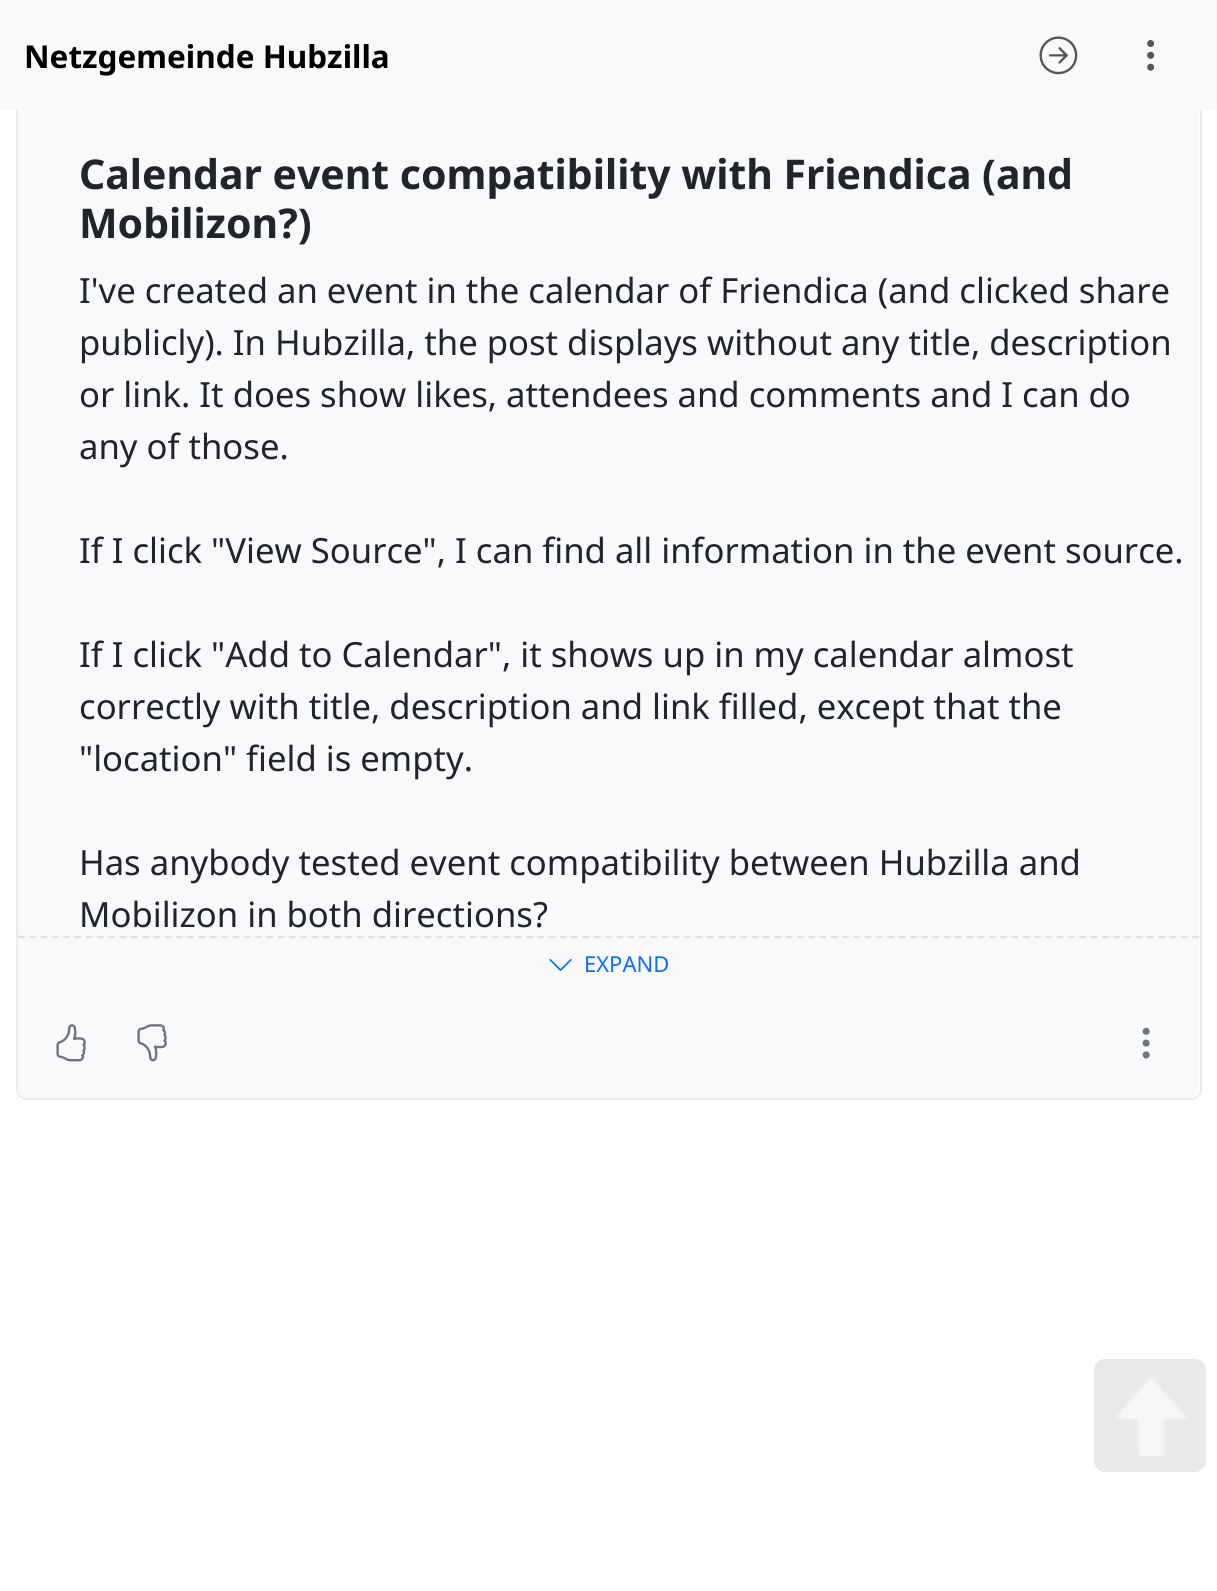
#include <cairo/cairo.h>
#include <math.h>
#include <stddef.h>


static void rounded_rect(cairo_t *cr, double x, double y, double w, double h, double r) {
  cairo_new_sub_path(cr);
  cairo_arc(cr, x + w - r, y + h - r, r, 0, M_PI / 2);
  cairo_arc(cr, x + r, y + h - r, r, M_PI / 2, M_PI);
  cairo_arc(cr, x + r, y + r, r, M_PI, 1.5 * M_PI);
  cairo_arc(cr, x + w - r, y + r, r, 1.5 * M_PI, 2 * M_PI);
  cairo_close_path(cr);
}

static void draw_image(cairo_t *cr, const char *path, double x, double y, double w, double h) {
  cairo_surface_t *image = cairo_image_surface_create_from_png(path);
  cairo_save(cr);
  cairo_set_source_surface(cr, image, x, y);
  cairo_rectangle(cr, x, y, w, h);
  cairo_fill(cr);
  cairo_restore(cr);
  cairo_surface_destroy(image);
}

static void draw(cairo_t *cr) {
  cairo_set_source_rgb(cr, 1, 1, 1);
  cairo_paint(cr);
  rounded_rect(cr, 17, -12, 1184, 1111, 10);
  cairo_set_source_rgb(cr, 233 / 255.0, 236 / 255.0, 239 / 255.0);
  cairo_stroke(cr);
  cairo_set_source_rgb(cr, 248 / 255.0, 249 / 255.0, 250 / 255.0);
  rounded_rect(cr, 18, -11, 1181, 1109, 11);
  cairo_fill(cr);
  cairo_rectangle(cr, 0, 0, 1217, 110);
  cairo_fill(cr);
  draw_image(cr, "images/1.png", 1039, 36, 39, 39);
  draw_image(cr, "images/2.png", 1147, 40, 8, 31);
  cairo_new_path(cr);
  cairo_move_to(cr, 18, 937);
  cairo_line_to(cr, 1199, 937);
  cairo_set_source_rgb(cr, 224 / 255.0, 224 / 255.0, 224 / 255.0);
  cairo_set_line_width(cr, 2.2);
  cairo_set_dash(cr, (double[]){6.75, 4.54}, 2, 0);
  cairo_stroke(cr);
  draw_image(cr, "images/3.png", 549, 959, 23, 12);
  draw_image(cr, "images/4.png", 56, 1024, 30, 38);
  draw_image(cr, "images/5.png", 137, 1024, 30, 38);
  draw_image(cr, "images/6.png", 1142, 1027, 8, 32);
  cairo_set_source_rgb(cr, 233 / 255.0, 233 / 255.0, 233 / 255.0);
  rounded_rect(cr, 1094, 1359, 112, 113, 11);
  cairo_fill(cr);
  draw_image(cr, "images/7.png", 1115, 1377, 72, 79);
  cairo_select_font_face(cr, "Noto Sans", CAIRO_FONT_SLANT_NORMAL, CAIRO_FONT_WEIGHT_BOLD);
  cairo_set_font_size(cr, 31.5);
  cairo_set_source_rgb(cr, 0, 0, 0);
  cairo_move_to(cr, 24, 68);
  cairo_show_text(cr, "Netzgemeinde Hubzilla");
  cairo_set_font_size(cr, 40.95);
  cairo_set_source_rgb(cr, 33 / 255.0, 37 / 255.0, 41 / 255.0);
  cairo_move_to(cr, 79, 189);
  cairo_show_text(cr, "Calendar event compatibility with Friendica (and");
  cairo_move_to(cr, 79, 238);
  cairo_show_text(cr, "Mobilizon?)");
  cairo_select_font_face(cr, "Noto Sans", CAIRO_FONT_SLANT_NORMAL, CAIRO_FONT_WEIGHT_NORMAL);
  cairo_set_font_size(cr, 34.65);
  cairo_move_to(cr, 79, 303);
  cairo_show_text(cr, "I've created an event in the calendar of Friendica (and clicked share");
  cairo_move_to(cr, 79, 355);
  cairo_show_text(cr, "publicly). In Hubzilla, the post displays without any title, description");
  cairo_move_to(cr, 79, 407);
  cairo_show_text(cr, "or link. It does show likes, attendees and comments and I can do");
  cairo_move_to(cr, 79, 459);
  cairo_show_text(cr, "any of those.");
  cairo_move_to(cr, 79, 563);
  cairo_show_text(cr, "If I click \"View Source\", I can find all information in the event source.");
  cairo_move_to(cr, 79, 667);
  cairo_show_text(cr, "If I click \"Add to Calendar\", it shows up in my calendar almost");
  cairo_move_to(cr, 79, 719);
  cairo_show_text(cr, "correctly with title, description and link filled, except that the");
  cairo_move_to(cr, 79, 771);
  cairo_show_text(cr, "\"location\" field is empty.");
  cairo_move_to(cr, 79, 875);
  cairo_show_text(cr, "Has anybody tested event compatibility between Hubzilla and");
  cairo_move_to(cr, 79, 927);
  cairo_show_text(cr, "Mobilizon in both directions?");
  cairo_set_font_size(cr, 22);
  cairo_set_source_rgb(cr, 13 / 255.0, 110 / 255.0, 253 / 255.0);
  cairo_move_to(cr, 584, 972);
  cairo_show_text(cr, "EXPAND");
}

int main(void) {
  cairo_surface_t *surface = cairo_image_surface_create(CAIRO_FORMAT_RGB24, 1217, 1591);
  cairo_t *cr = cairo_create(surface);
  cairo_font_options_t *options = cairo_font_options_create();
  cairo_font_options_set_hint_metrics(options, CAIRO_HINT_METRICS_OFF);
  cairo_font_options_set_hint_style(options, CAIRO_HINT_STYLE_NONE);
  cairo_set_font_options(cr, options);
  cairo_set_miter_limit(cr, 4);
  draw(cr);
  cairo_surface_write_to_png(surface, "out.png");
  cairo_font_options_destroy(options);
  cairo_destroy(cr);
  cairo_surface_destroy(surface);
  return 0;
}
